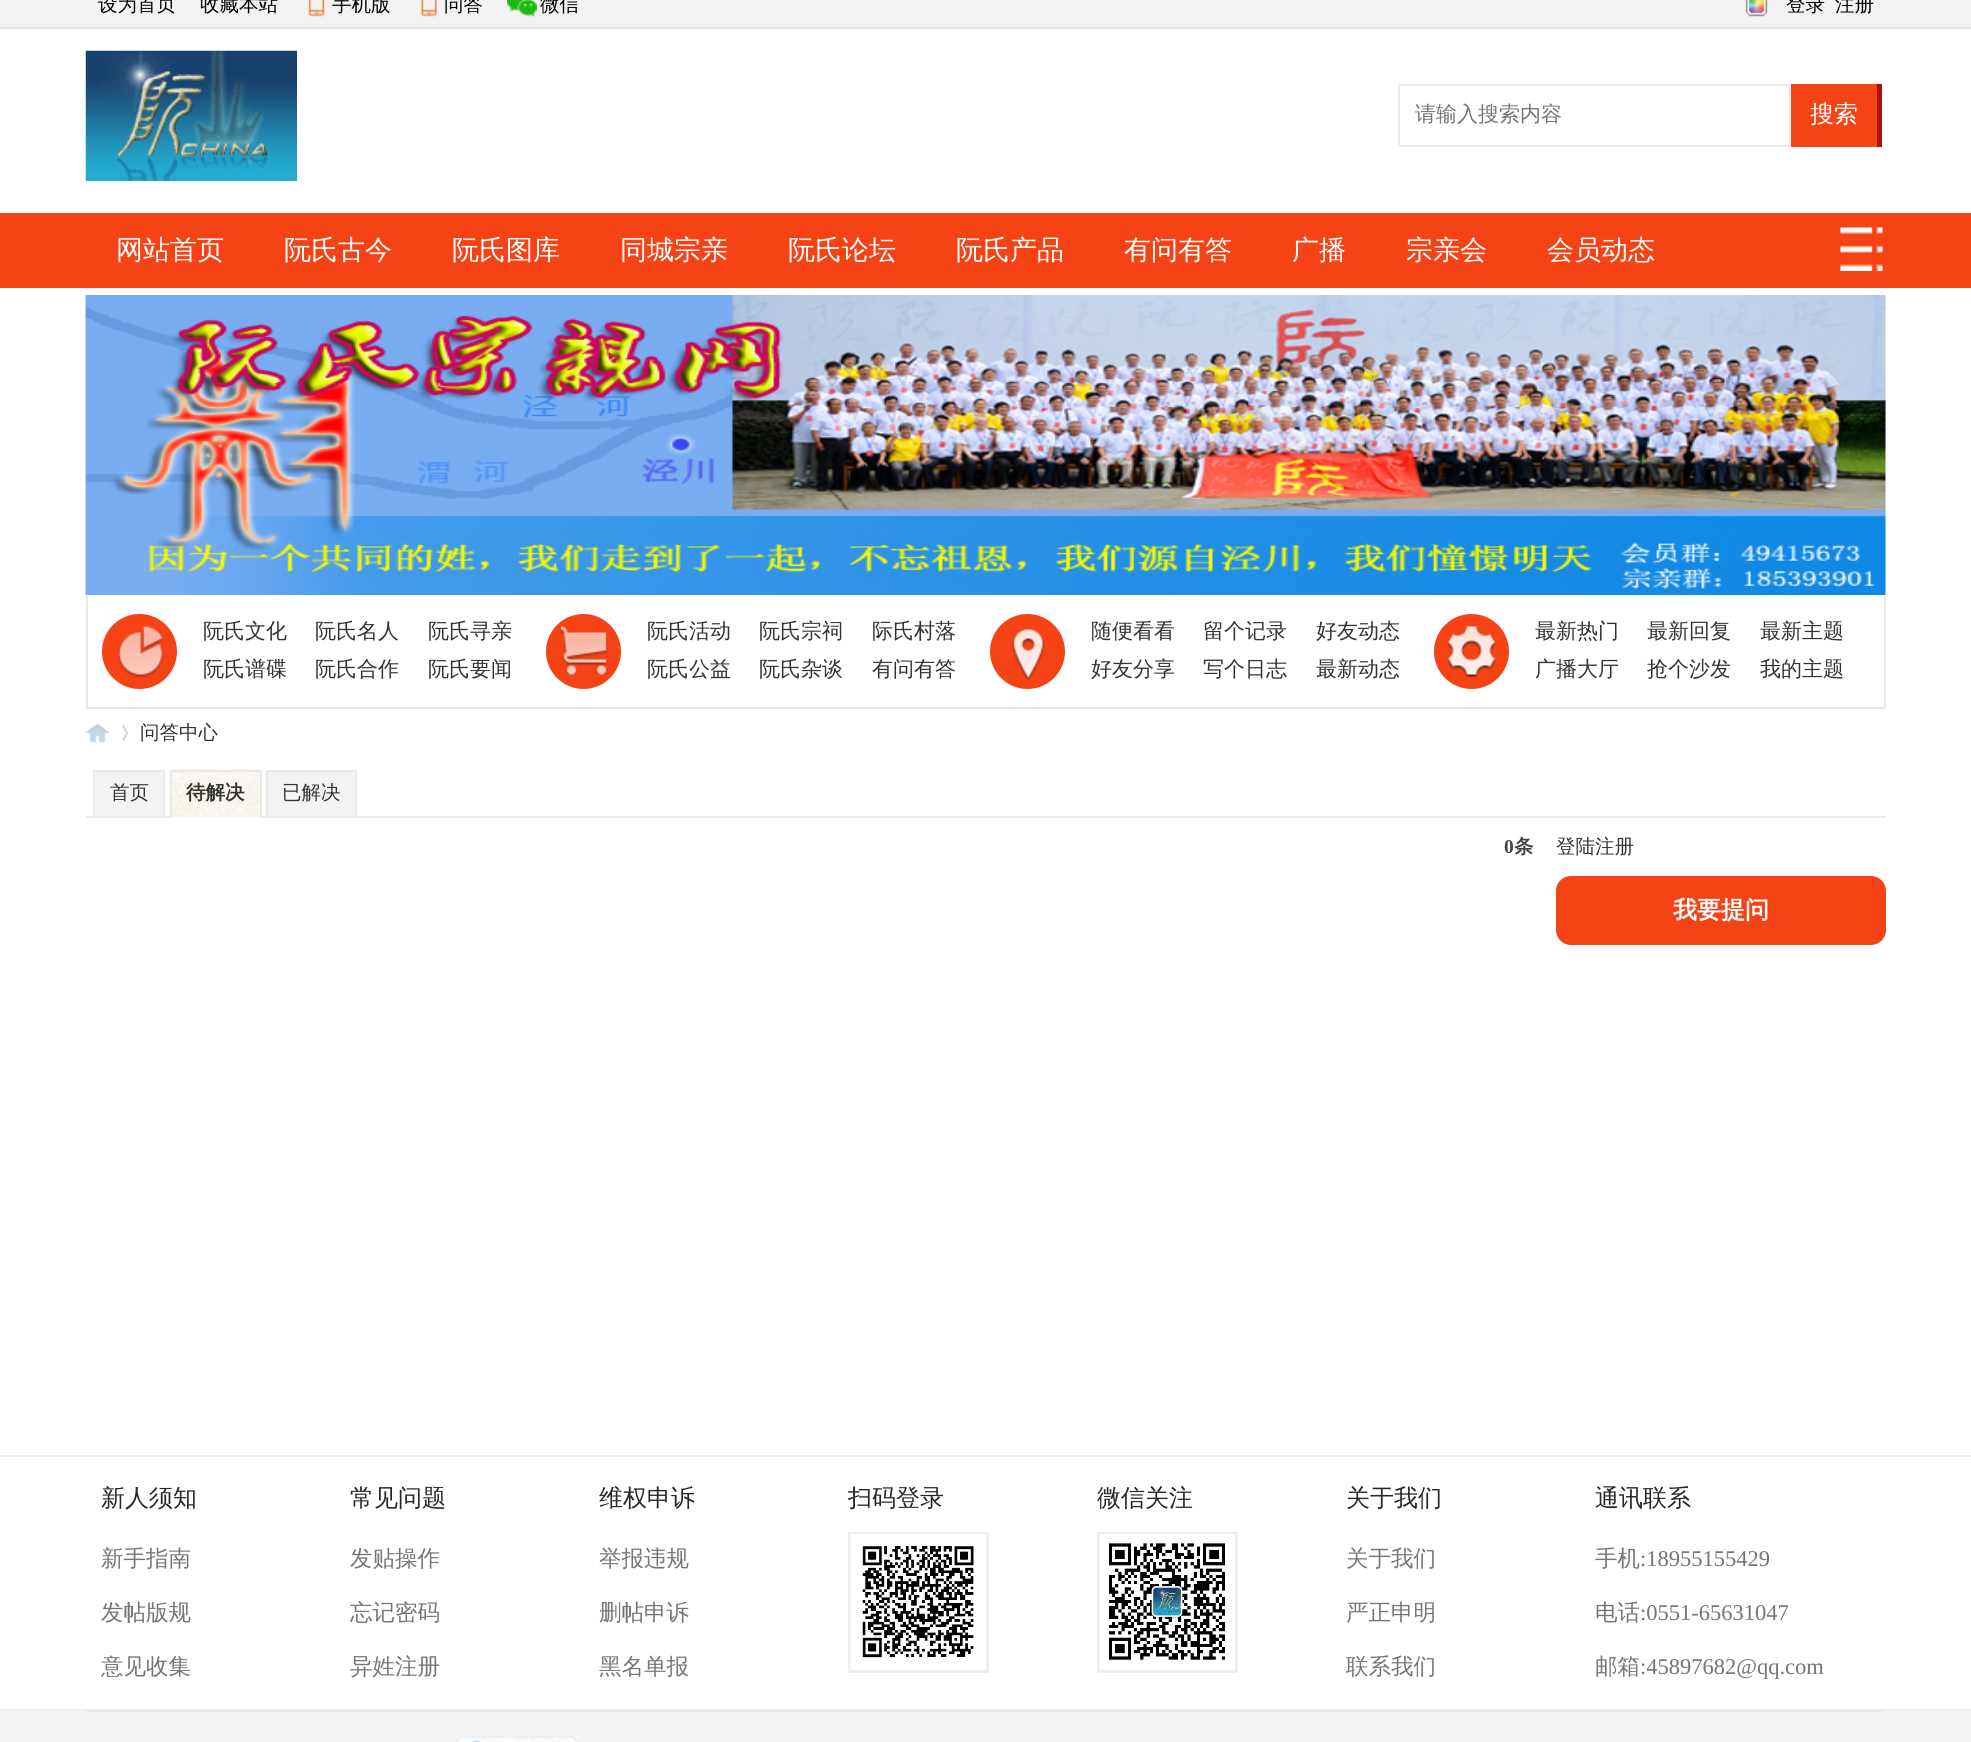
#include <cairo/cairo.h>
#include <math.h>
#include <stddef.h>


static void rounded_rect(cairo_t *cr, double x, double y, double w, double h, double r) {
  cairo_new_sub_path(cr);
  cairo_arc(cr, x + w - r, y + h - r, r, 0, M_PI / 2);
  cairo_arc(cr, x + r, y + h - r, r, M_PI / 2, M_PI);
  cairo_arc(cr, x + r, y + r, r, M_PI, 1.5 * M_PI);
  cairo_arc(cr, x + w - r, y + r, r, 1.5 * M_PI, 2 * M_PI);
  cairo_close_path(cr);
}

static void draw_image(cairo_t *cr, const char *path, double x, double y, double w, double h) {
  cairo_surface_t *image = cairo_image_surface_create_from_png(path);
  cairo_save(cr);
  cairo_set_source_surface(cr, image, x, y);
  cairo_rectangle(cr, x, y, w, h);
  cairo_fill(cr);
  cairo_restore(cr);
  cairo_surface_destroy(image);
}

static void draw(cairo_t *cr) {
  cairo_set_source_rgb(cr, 1, 1, 1);
  cairo_paint(cr);
  cairo_set_source_rgb(cr, 242 / 255.0, 242 / 255.0, 242 / 255.0);
  cairo_rectangle(cr, 0, 0, 1971, 27);
  cairo_fill(cr);
  cairo_set_source_rgb(cr, 229 / 255.0, 229 / 255.0, 229 / 255.0);
  cairo_rectangle(cr, 0, 27, 1971, 2);
  cairo_fill(cr);
  draw_image(cr, "images/1.png", 308, 0, 17, 17);
  draw_image(cr, "images/2.png", 421, 0, 16, 17);
  draw_image(cr, "images/3.png", 507, 0, 30, 17);
  draw_image(cr, "images/4.png", 1745, 0, 23, 17);
  draw_image(cr, "images/5.png", 85, 50, 212, 131);
  cairo_rectangle(cr, 1399, 85, 391, 61);
  cairo_set_source_rgb(cr, 235 / 255.0, 235 / 255.0, 235 / 255.0);
  cairo_stroke(cr);
  cairo_set_source_rgb(cr, 245 / 255.0, 67 / 255.0, 22 / 255.0);
  cairo_rectangle(cr, 1791, 84, 86, 63);
  cairo_fill(cr);
  cairo_set_source_rgb(cr, 169 / 255.0, 18 / 255.0, 20 / 255.0);
  cairo_rectangle(cr, 1877, 84, 5, 63);
  cairo_fill(cr);
  cairo_set_source_rgb(cr, 245 / 255.0, 67 / 255.0, 22 / 255.0);
  cairo_rectangle(cr, 0, 213, 1971, 75);
  cairo_fill(cr);
  draw_image(cr, "images/6.png", 1840, 227, 43, 44);
  draw_image(cr, "images/7.png", 85, 295, 1801, 300);
  cairo_set_source_rgb(cr, 231 / 255.0, 231 / 255.0, 231 / 255.0);
  cairo_rectangle(cr, 1884, 596, 2, 112);
  cairo_fill(cr);
  cairo_rectangle(cr, 86, 707, 1800, 2);
  cairo_fill(cr);
  cairo_rectangle(cr, 86, 596, 2, 112);
  cairo_fill(cr);
  cairo_set_source_rgb(cr, 245 / 255.0, 67 / 255.0, 22 / 255.0);
  cairo_arc(cr, 139.5, 651.5, 37.5, 0, 2 * M_PI);
  cairo_fill(cr);
  draw_image(cr, "images/8.png", 118, 626, 46, 52);
  cairo_arc(cr, 583.5, 651.5, 37.5, 0, 2 * M_PI);
  cairo_fill(cr);
  draw_image(cr, "images/9.png", 561, 626, 47, 49);
  cairo_arc(cr, 1027.5, 651.5, 37.5, 0, 2 * M_PI);
  cairo_fill(cr);
  draw_image(cr, "images/10.png", 1012, 629, 33, 52);
  cairo_arc(cr, 1471.5, 651.5, 37.5, 0, 2 * M_PI);
  cairo_fill(cr);
  draw_image(cr, "images/11.png", 1446, 626, 50, 52);
  draw_image(cr, "images/12.png", 85, 723, 25, 20);
  draw_image(cr, "images/13.png", 122, 725, 6, 16);
  cairo_set_source_rgb(cr, 234 / 255.0, 234 / 255.0, 234 / 255.0);
  cairo_rectangle(cr, 86, 816, 1800, 2);
  cairo_fill(cr);
  cairo_set_source_rgb(cr, 243 / 255.0, 243 / 255.0, 243 / 255.0);
  cairo_rectangle(cr, 94, 771, 70, 46);
  cairo_fill_preserve(cr);
  cairo_set_source_rgb(cr, 234 / 255.0, 234 / 255.0, 234 / 255.0);
  cairo_stroke(cr);
  draw_image(cr, "images/14.png", 169, 769, 92, 48);
  cairo_rectangle(cr, 170, 770, 91, 2);
  cairo_fill(cr);
  cairo_rectangle(cr, 260, 770, 2, 48);
  cairo_fill(cr);
  cairo_set_source_rgb(cr, 250 / 255.0, 246 / 255.0, 237 / 255.0);
  cairo_rectangle(cr, 170, 816, 91, 2);
  cairo_fill(cr);
  cairo_set_source_rgb(cr, 234 / 255.0, 234 / 255.0, 234 / 255.0);
  cairo_rectangle(cr, 170, 770, 2, 48);
  cairo_fill(cr);
  cairo_set_source_rgb(cr, 243 / 255.0, 243 / 255.0, 243 / 255.0);
  cairo_rectangle(cr, 267, 771, 89, 46);
  cairo_fill_preserve(cr);
  cairo_set_source_rgb(cr, 234 / 255.0, 234 / 255.0, 234 / 255.0);
  cairo_stroke(cr);
  cairo_set_source_rgb(cr, 245 / 255.0, 67 / 255.0, 22 / 255.0);
  rounded_rect(cr, 1556, 876, 330, 69, 15);
  cairo_fill(cr);
  cairo_set_source_rgb(cr, 238 / 255.0, 238 / 255.0, 238 / 255.0);
  cairo_rectangle(cr, 0, 1455, 1971, 2);
  cairo_fill(cr);
  cairo_rectangle(cr, 849.5, 1533.5, 138, 138);
  cairo_set_line_width(cr, 3);
  cairo_stroke(cr);
  draw_image(cr, "images/15.png", 850, 1534, 136, 135);
  cairo_rectangle(cr, 1098.5, 1533.5, 138, 138);
  cairo_stroke(cr);
  draw_image(cr, "images/16.png", 1099, 1534, 136, 135);
  cairo_set_source_rgb(cr, 245 / 255.0, 245 / 255.0, 245 / 255.0);
  cairo_rectangle(cr, 0, 1711, 1971, 31);
  cairo_fill(cr);
  cairo_set_source_rgb(cr, 238 / 255.0, 238 / 255.0, 238 / 255.0);
  cairo_rectangle(cr, 0, 1709, 1971, 2);
  cairo_fill(cr);
  cairo_set_source_rgb(cr, 234 / 255.0, 234 / 255.0, 234 / 255.0);
  cairo_rectangle(cr, 86, 1710, 1800, 2);
  cairo_fill(cr);
  draw_image(cr, "images/17.png", 456, 1736, 122, 6);
  cairo_select_font_face(cr, "WenQuanYi Zen Hei Medium", CAIRO_FONT_SLANT_NORMAL, CAIRO_FONT_WEIGHT_NORMAL);
  cairo_set_font_size(cr, 19.5);
  cairo_set_source_rgb(cr, 0, 0, 0);
  cairo_move_to(cr, 98, 11);
  cairo_show_text(cr, "设为首页");
  cairo_move_to(cr, 200, 11);
  cairo_show_text(cr, "收藏本站");
  cairo_move_to(cr, 332, 11);
  cairo_show_text(cr, "手机版");
  cairo_move_to(cr, 444, 11);
  cairo_show_text(cr, "问答");
  cairo_move_to(cr, 540, 11);
  cairo_show_text(cr, "微信");
  cairo_move_to(cr, 1786, 11);
  cairo_show_text(cr, "登录");
  cairo_move_to(cr, 1835, 11);
  cairo_show_text(cr, "注册");
  cairo_set_font_size(cr, 21);
  cairo_set_source_rgb(cr, 117 / 255.0, 117 / 255.0, 117 / 255.0);
  cairo_move_to(cr, 1415, 121);
  cairo_show_text(cr, "请输入搜索内容");
  cairo_set_font_size(cr, 24);
  cairo_set_source_rgb(cr, 1, 1, 1);
  cairo_move_to(cr, 1810, 122);
  cairo_show_text(cr, "搜索");
  cairo_set_font_size(cr, 27);
  cairo_move_to(cr, 116, 259);
  cairo_show_text(cr, "网站首页");
  cairo_move_to(cr, 284, 259);
  cairo_show_text(cr, "阮氏古今");
  cairo_move_to(cr, 452, 259);
  cairo_show_text(cr, "阮氏图库");
  cairo_move_to(cr, 620, 259);
  cairo_show_text(cr, "同城宗亲");
  cairo_move_to(cr, 788, 259);
  cairo_show_text(cr, "阮氏论坛");
  cairo_move_to(cr, 956, 259);
  cairo_show_text(cr, "阮氏产品");
  cairo_move_to(cr, 1124, 259);
  cairo_show_text(cr, "有问有答");
  cairo_move_to(cr, 1292, 259);
  cairo_show_text(cr, "广播");
  cairo_move_to(cr, 1406, 259);
  cairo_show_text(cr, "宗亲会");
  cairo_move_to(cr, 1547, 259);
  cairo_show_text(cr, "会员动态");
  cairo_set_font_size(cr, 21);
  cairo_set_source_rgb(cr, 51 / 255.0, 51 / 255.0, 51 / 255.0);
  cairo_move_to(cr, 203, 638);
  cairo_show_text(cr, "阮氏文化");
  cairo_move_to(cr, 315, 638);
  cairo_show_text(cr, "阮氏名人");
  cairo_move_to(cr, 428, 638);
  cairo_show_text(cr, "阮氏寻亲");
  cairo_move_to(cr, 203, 676);
  cairo_show_text(cr, "阮氏谱碟");
  cairo_move_to(cr, 315, 676);
  cairo_show_text(cr, "阮氏合作");
  cairo_move_to(cr, 428, 676);
  cairo_show_text(cr, "阮氏要闻");
  cairo_move_to(cr, 647, 638);
  cairo_show_text(cr, "阮氏活动");
  cairo_move_to(cr, 759, 638);
  cairo_show_text(cr, "阮氏宗祠");
  cairo_move_to(cr, 872, 638);
  cairo_show_text(cr, "际氏村落");
  cairo_move_to(cr, 647, 676);
  cairo_show_text(cr, "阮氏公益");
  cairo_move_to(cr, 759, 676);
  cairo_show_text(cr, "阮氏杂谈");
  cairo_move_to(cr, 872, 676);
  cairo_show_text(cr, "有问有答");
  cairo_move_to(cr, 1091, 638);
  cairo_show_text(cr, "随便看看");
  cairo_move_to(cr, 1203, 638);
  cairo_show_text(cr, "留个记录");
  cairo_move_to(cr, 1316, 638);
  cairo_show_text(cr, "好友动态");
  cairo_move_to(cr, 1091, 676);
  cairo_show_text(cr, "好友分享");
  cairo_move_to(cr, 1203, 676);
  cairo_show_text(cr, "写个日志");
  cairo_move_to(cr, 1316, 676);
  cairo_show_text(cr, "最新动态");
  cairo_move_to(cr, 1535, 638);
  cairo_show_text(cr, "最新热门");
  cairo_move_to(cr, 1647, 638);
  cairo_show_text(cr, "最新回复");
  cairo_move_to(cr, 1760, 638);
  cairo_show_text(cr, "最新主题");
  cairo_move_to(cr, 1535, 676);
  cairo_show_text(cr, "广播大厅");
  cairo_move_to(cr, 1647, 676);
  cairo_show_text(cr, "抢个沙发");
  cairo_move_to(cr, 1760, 676);
  cairo_show_text(cr, "我的主题");
  cairo_set_font_size(cr, 19.5);
  cairo_move_to(cr, 140, 739);
  cairo_show_text(cr, "问答中心");
  cairo_move_to(cr, 110, 799);
  cairo_show_text(cr, "首页");
  cairo_select_font_face(cr, "WenQuanYi Zen Hei", CAIRO_FONT_SLANT_NORMAL, CAIRO_FONT_WEIGHT_BOLD);
  cairo_move_to(cr, 186, 799);
  cairo_show_text(cr, "待解决");
  cairo_select_font_face(cr, "WenQuanYi Zen Hei Medium", CAIRO_FONT_SLANT_NORMAL, CAIRO_FONT_WEIGHT_NORMAL);
  cairo_move_to(cr, 282, 799);
  cairo_show_text(cr, "已解决");
  cairo_select_font_face(cr, "Liberation Serif", CAIRO_FONT_SLANT_NORMAL, CAIRO_FONT_WEIGHT_BOLD);
  cairo_set_source_rgb(cr, 68 / 255.0, 68 / 255.0, 68 / 255.0);
  cairo_move_to(cr, 1504, 853);
  cairo_show_text(cr, "0");
  cairo_select_font_face(cr, "WenQuanYi Zen Hei", CAIRO_FONT_SLANT_NORMAL, CAIRO_FONT_WEIGHT_BOLD);
  cairo_move_to(cr, 1514, 853);
  cairo_show_text(cr, "条");
  cairo_select_font_face(cr, "WenQuanYi Zen Hei Medium", CAIRO_FONT_SLANT_NORMAL, CAIRO_FONT_WEIGHT_NORMAL);
  cairo_set_source_rgb(cr, 51 / 255.0, 51 / 255.0, 51 / 255.0);
  cairo_move_to(cr, 1556, 853);
  cairo_show_text(cr, "登陆注册");
  cairo_select_font_face(cr, "WenQuanYi Zen Hei", CAIRO_FONT_SLANT_NORMAL, CAIRO_FONT_WEIGHT_BOLD);
  cairo_set_font_size(cr, 24);
  cairo_set_source_rgb(cr, 1, 1, 1);
  cairo_move_to(cr, 1673, 918);
  cairo_show_text(cr, "我要提问");
  cairo_select_font_face(cr, "WenQuanYi Zen Hei Medium", CAIRO_FONT_SLANT_NORMAL, CAIRO_FONT_WEIGHT_NORMAL);
  cairo_set_source_rgb(cr, 39 / 255.0, 39 / 255.0, 39 / 255.0);
  cairo_move_to(cr, 101, 1506);
  cairo_show_text(cr, "新人须知");
  cairo_set_font_size(cr, 22.5);
  cairo_set_source_rgb(cr, 117 / 255.0, 117 / 255.0, 117 / 255.0);
  cairo_move_to(cr, 101, 1566);
  cairo_show_text(cr, "新手指南");
  cairo_move_to(cr, 101, 1620);
  cairo_show_text(cr, "发帖版规");
  cairo_move_to(cr, 101, 1674);
  cairo_show_text(cr, "意见收集");
  cairo_set_font_size(cr, 24);
  cairo_set_source_rgb(cr, 39 / 255.0, 39 / 255.0, 39 / 255.0);
  cairo_move_to(cr, 350, 1506);
  cairo_show_text(cr, "常见问题");
  cairo_set_font_size(cr, 22.5);
  cairo_set_source_rgb(cr, 117 / 255.0, 117 / 255.0, 117 / 255.0);
  cairo_move_to(cr, 350, 1566);
  cairo_show_text(cr, "发贴操作");
  cairo_move_to(cr, 350, 1620);
  cairo_show_text(cr, "忘记密码");
  cairo_move_to(cr, 350, 1674);
  cairo_show_text(cr, "异姓注册");
  cairo_set_font_size(cr, 24);
  cairo_set_source_rgb(cr, 39 / 255.0, 39 / 255.0, 39 / 255.0);
  cairo_move_to(cr, 599, 1506);
  cairo_show_text(cr, "维权申诉");
  cairo_set_font_size(cr, 22.5);
  cairo_set_source_rgb(cr, 117 / 255.0, 117 / 255.0, 117 / 255.0);
  cairo_move_to(cr, 599, 1566);
  cairo_show_text(cr, "举报违规");
  cairo_move_to(cr, 599, 1620);
  cairo_show_text(cr, "删帖申诉");
  cairo_move_to(cr, 599, 1674);
  cairo_show_text(cr, "黑名单报");
  cairo_save(cr);
  cairo_rectangle(cr, 848, 1481, 237, 36);
  cairo_clip(cr);
  cairo_set_font_size(cr, 24);
  cairo_set_source_rgb(cr, 39 / 255.0, 39 / 255.0, 39 / 255.0);
  cairo_move_to(cr, 848, 1506);
  cairo_show_text(cr, "扫码登录");
  cairo_restore(cr);
  cairo_set_font_size(cr, 24);
  cairo_set_source_rgb(cr, 39 / 255.0, 39 / 255.0, 39 / 255.0);
  cairo_move_to(cr, 1097, 1506);
  cairo_show_text(cr, "微信关注");
  cairo_move_to(cr, 1346, 1506);
  cairo_show_text(cr, "关于我们");
  cairo_set_font_size(cr, 22.5);
  cairo_set_source_rgb(cr, 117 / 255.0, 117 / 255.0, 117 / 255.0);
  cairo_move_to(cr, 1346, 1566);
  cairo_show_text(cr, "关于我们");
  cairo_move_to(cr, 1346, 1620);
  cairo_show_text(cr, "严正申明");
  cairo_move_to(cr, 1346, 1674);
  cairo_show_text(cr, "联系我们");
  cairo_set_font_size(cr, 24);
  cairo_set_source_rgb(cr, 39 / 255.0, 39 / 255.0, 39 / 255.0);
  cairo_move_to(cr, 1595, 1506);
  cairo_show_text(cr, "通讯联系");
  cairo_set_font_size(cr, 22.5);
  cairo_set_source_rgb(cr, 117 / 255.0, 117 / 255.0, 117 / 255.0);
  cairo_move_to(cr, 1595, 1566);
  cairo_show_text(cr, "手机");
  cairo_select_font_face(cr, "Liberation Serif", CAIRO_FONT_SLANT_NORMAL, CAIRO_FONT_WEIGHT_NORMAL);
  cairo_move_to(cr, 1640, 1566);
  cairo_show_text(cr, ":18955155429");
  cairo_select_font_face(cr, "WenQuanYi Zen Hei Medium", CAIRO_FONT_SLANT_NORMAL, CAIRO_FONT_WEIGHT_NORMAL);
  cairo_move_to(cr, 1595, 1620);
  cairo_show_text(cr, "电话");
  cairo_select_font_face(cr, "Liberation Serif", CAIRO_FONT_SLANT_NORMAL, CAIRO_FONT_WEIGHT_NORMAL);
  cairo_move_to(cr, 1640, 1620);
  cairo_show_text(cr, ":0551-65631047");
  cairo_select_font_face(cr, "WenQuanYi Zen Hei Medium", CAIRO_FONT_SLANT_NORMAL, CAIRO_FONT_WEIGHT_NORMAL);
  cairo_move_to(cr, 1595, 1674);
  cairo_show_text(cr, "邮箱");
  cairo_select_font_face(cr, "Liberation Serif", CAIRO_FONT_SLANT_NORMAL, CAIRO_FONT_WEIGHT_NORMAL);
  cairo_move_to(cr, 1640, 1674);
  cairo_show_text(cr, ":45897682@qq.com");
}

int main(void) {
  cairo_surface_t *surface = cairo_image_surface_create(CAIRO_FORMAT_RGB24, 1971, 1742);
  cairo_t *cr = cairo_create(surface);
  cairo_font_options_t *options = cairo_font_options_create();
  cairo_font_options_set_hint_metrics(options, CAIRO_HINT_METRICS_OFF);
  cairo_font_options_set_hint_style(options, CAIRO_HINT_STYLE_NONE);
  cairo_set_font_options(cr, options);
  cairo_set_miter_limit(cr, 4);
  draw(cr);
  cairo_surface_write_to_png(surface, "out.png");
  cairo_font_options_destroy(options);
  cairo_destroy(cr);
  cairo_surface_destroy(surface);
  return 0;
}
